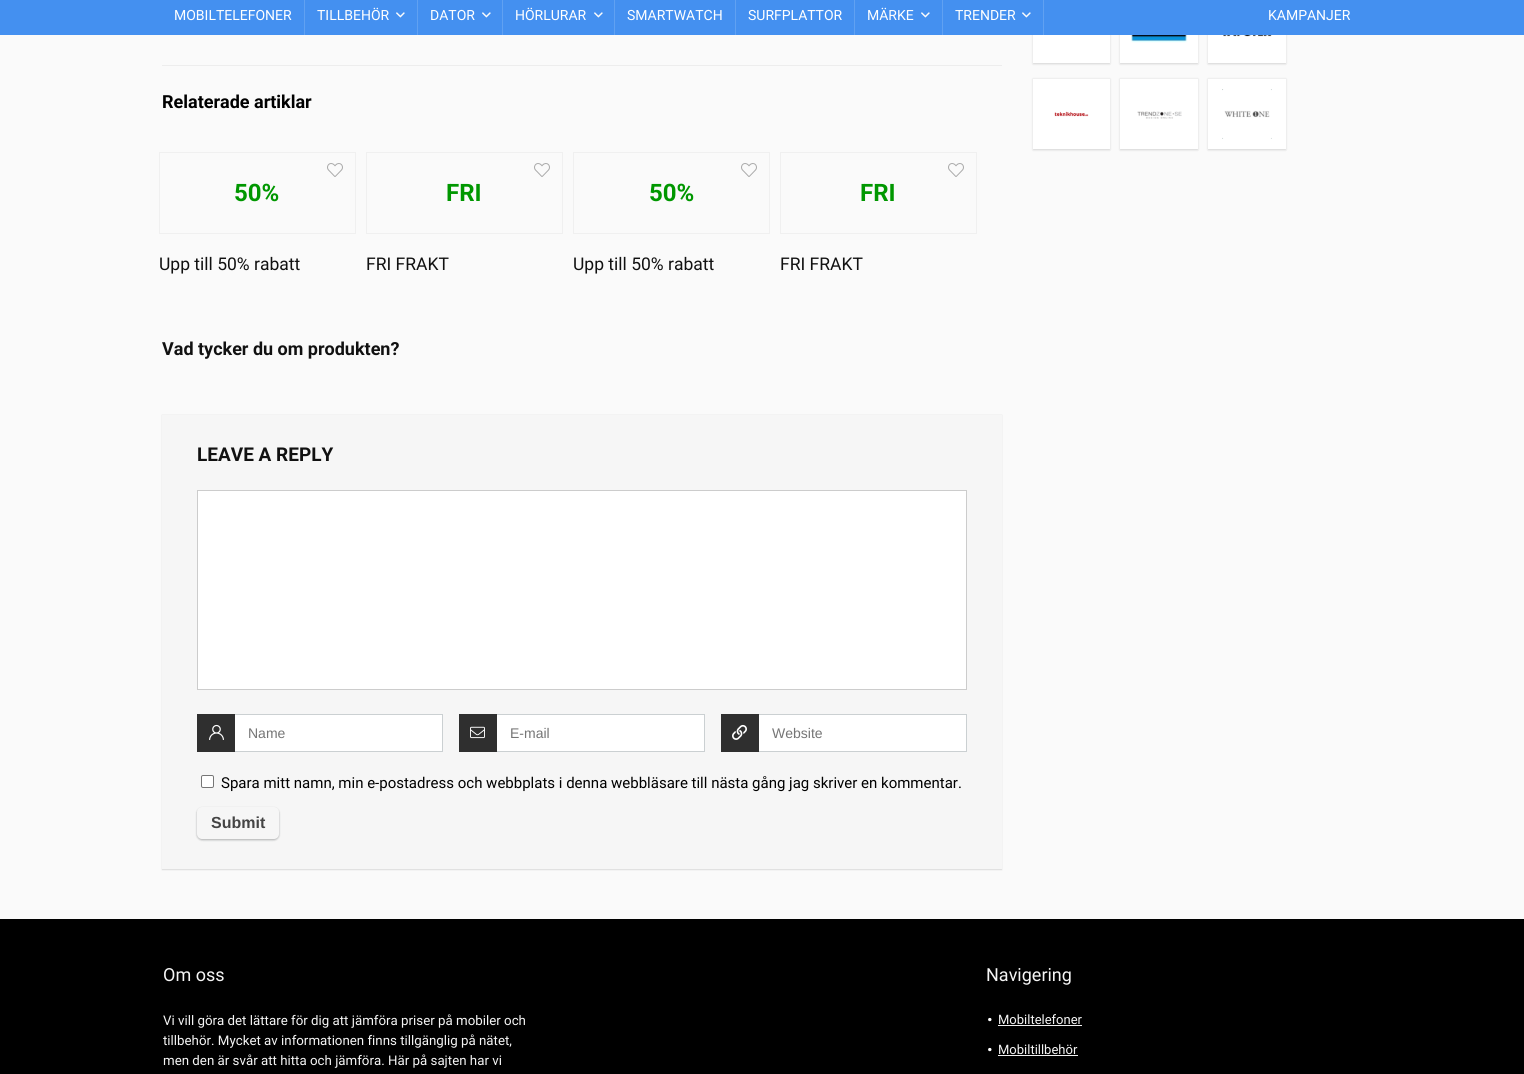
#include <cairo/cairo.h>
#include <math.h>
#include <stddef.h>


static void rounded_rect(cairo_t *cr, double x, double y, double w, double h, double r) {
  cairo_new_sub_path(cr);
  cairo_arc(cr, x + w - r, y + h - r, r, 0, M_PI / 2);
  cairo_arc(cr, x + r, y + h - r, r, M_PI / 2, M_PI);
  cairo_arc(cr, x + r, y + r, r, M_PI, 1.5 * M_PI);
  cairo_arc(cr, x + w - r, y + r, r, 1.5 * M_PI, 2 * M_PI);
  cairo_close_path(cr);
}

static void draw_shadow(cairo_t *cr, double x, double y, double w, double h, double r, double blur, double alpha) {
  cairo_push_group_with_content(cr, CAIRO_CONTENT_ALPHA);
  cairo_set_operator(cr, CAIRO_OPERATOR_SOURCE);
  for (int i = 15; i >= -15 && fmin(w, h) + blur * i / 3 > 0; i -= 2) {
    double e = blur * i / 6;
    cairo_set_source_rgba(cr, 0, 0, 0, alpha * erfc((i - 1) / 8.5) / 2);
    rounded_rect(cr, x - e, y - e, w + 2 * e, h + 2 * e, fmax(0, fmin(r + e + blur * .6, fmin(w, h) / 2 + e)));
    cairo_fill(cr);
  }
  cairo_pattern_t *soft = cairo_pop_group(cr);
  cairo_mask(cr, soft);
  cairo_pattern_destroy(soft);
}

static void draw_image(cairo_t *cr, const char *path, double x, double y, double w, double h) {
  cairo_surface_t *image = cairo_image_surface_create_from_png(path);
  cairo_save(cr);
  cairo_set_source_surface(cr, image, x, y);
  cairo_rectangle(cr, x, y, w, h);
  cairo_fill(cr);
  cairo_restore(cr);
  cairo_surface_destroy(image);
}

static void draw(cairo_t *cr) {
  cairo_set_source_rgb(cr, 250 / 255.0, 250 / 255.0, 250 / 255.0);
  cairo_paint(cr);
  cairo_set_source_rgb(cr, 0, 0, 0);
  draw_shadow(cr, 1033, 0, 77, 64, 0, 1, 0.15);
  draw_shadow(cr, 1120, 0, 78, 64, 0, 1, 0.15);
  draw_shadow(cr, 1208, 0, 78, 64, 0, 1, 0.15);
  cairo_set_source_rgb(cr, 68 / 255.0, 144 / 255.0, 240 / 255.0);
  cairo_rectangle(cr, 0, 0, 1524, 35);
  cairo_fill(cr);
  cairo_set_source_rgb(cr, 96 / 255.0, 161 / 255.0, 242 / 255.0);
  cairo_rectangle(cr, 304, 0, 1, 35);
  cairo_fill(cr);
  cairo_rectangle(cr, 417, 0, 1, 35);
  cairo_fill(cr);
  draw_image(cr, "images/1.png", 396, 12, 9, 6);
  cairo_rectangle(cr, 502, 0, 1, 35);
  cairo_fill(cr);
  draw_image(cr, "images/1.png", 482, 12, 9, 6);
  cairo_rectangle(cr, 614, 0, 1, 35);
  cairo_fill(cr);
  draw_image(cr, "images/1.png", 594, 12, 9, 6);
  cairo_rectangle(cr, 735, 0, 1, 35);
  cairo_fill(cr);
  cairo_rectangle(cr, 854, 0, 1, 35);
  cairo_fill(cr);
  cairo_rectangle(cr, 942, 0, 1, 35);
  cairo_fill(cr);
  draw_image(cr, "images/1.png", 921, 12, 9, 6);
  cairo_rectangle(cr, 1043, 0, 1, 35);
  cairo_fill(cr);
  draw_image(cr, "images/1.png", 1022, 12, 9, 6);
  cairo_set_source_rgb(cr, 1, 1, 1);
  cairo_rectangle(cr, 1033, 35, 77, 28);
  cairo_fill(cr);
  cairo_rectangle(cr, 1120, 35, 78, 28);
  cairo_fill(cr);
  draw_image(cr, "images/2.png", 1131, 35, 57, 8);
  cairo_rectangle(cr, 1208, 35, 78, 28);
  cairo_fill(cr);
  draw_image(cr, "images/3.png", 1222, 35, 50, 2);
  cairo_set_source_rgb(cr, 0, 0, 0);
  draw_shadow(cr, 1033, 79, 77, 71, 0, 1, 0.15);
  cairo_set_source_rgb(cr, 1, 1, 1);
  cairo_rectangle(cr, 1033, 79, 77, 70);
  cairo_fill(cr);
  cairo_set_source_rgb(cr, 239 / 255.0, 239 / 255.0, 239 / 255.0);
  cairo_rectangle(cr, 1033, 78, 77, 1);
  cairo_fill(cr);
  draw_image(cr, "images/4.png", 1054, 111, 35, 6);
  cairo_set_source_rgb(cr, 0, 0, 0);
  draw_shadow(cr, 1120, 79, 78, 71, 0, 1, 0.15);
  cairo_set_source_rgb(cr, 1, 1, 1);
  cairo_rectangle(cr, 1120, 79, 78, 70);
  cairo_fill(cr);
  cairo_set_source_rgb(cr, 239 / 255.0, 239 / 255.0, 239 / 255.0);
  cairo_rectangle(cr, 1120, 78, 78, 1);
  cairo_fill(cr);
  draw_image(cr, "images/5.png", 1137, 111, 45, 8);
  cairo_set_source_rgb(cr, 0, 0, 0);
  draw_shadow(cr, 1208, 79, 78, 71, 0, 1, 0.15);
  cairo_set_source_rgb(cr, 1, 1, 1);
  cairo_rectangle(cr, 1208, 79, 78, 70);
  cairo_fill(cr);
  cairo_set_source_rgb(cr, 239 / 255.0, 239 / 255.0, 239 / 255.0);
  cairo_rectangle(cr, 1208, 78, 78, 1);
  cairo_fill(cr);
  draw_image(cr, "images/6.png", 1222, 89, 50, 50);
  cairo_set_source_rgb(cr, 237 / 255.0, 237 / 255.0, 237 / 255.0);
  cairo_rectangle(cr, 162, 65, 840, 1);
  cairo_fill(cr);
  cairo_rectangle(cr, 159.5, 152.5, 196, 81);
  cairo_set_source_rgb(cr, 240 / 255.0, 240 / 255.0, 240 / 255.0);
  cairo_set_line_width(cr, 1);
  cairo_stroke(cr);
  draw_image(cr, "images/7.png", 327, 163, 16, 14);
  cairo_rectangle(cr, 366.5, 152.5, 196, 81);
  cairo_stroke(cr);
  draw_image(cr, "images/7.png", 534, 163, 16, 14);
  cairo_rectangle(cr, 573.5, 152.5, 196, 81);
  cairo_stroke(cr);
  draw_image(cr, "images/7.png", 741, 163, 16, 14);
  cairo_rectangle(cr, 780.5, 152.5, 196, 81);
  cairo_stroke(cr);
  draw_image(cr, "images/7.png", 948, 163, 16, 14);
  cairo_set_source_rgb(cr, 0, 0, 0);
  draw_shadow(cr, 162, 415, 840, 455, 0, 0.5, 0.12);
  cairo_set_source_rgb(cr, 246 / 255.0, 246 / 255.0, 246 / 255.0);
  cairo_rectangle(cr, 162, 415, 840, 454);
  cairo_fill(cr);
  cairo_set_source_rgb(cr, 1, 1, 1);
  cairo_rectangle(cr, 197.5, 490.5, 769, 199);
  cairo_fill_preserve(cr);
  cairo_set_source_rgb(cr, 204 / 255.0, 204 / 255.0, 204 / 255.0);
  cairo_stroke(cr);
  cairo_set_source_rgb(cr, 1, 1, 1);
  cairo_rectangle(cr, 235, 715, 207, 36);
  cairo_fill(cr);
  cairo_rectangle(cr, 197.5, 714.5, 245, 37);
  cairo_set_source_rgb(cr, 203 / 255.0, 208 / 255.0, 210 / 255.0);
  cairo_stroke(cr);
  cairo_set_source_rgb(cr, 47 / 255.0, 47 / 255.0, 47 / 255.0);
  cairo_rectangle(cr, 197, 714, 38, 38);
  cairo_fill(cr);
  draw_image(cr, "images/8.png", 209, 724, 15, 16);
  cairo_set_source_rgb(cr, 1, 1, 1);
  cairo_rectangle(cr, 497, 715, 207, 36);
  cairo_fill(cr);
  cairo_rectangle(cr, 459.5, 714.5, 245, 37);
  cairo_set_source_rgb(cr, 203 / 255.0, 208 / 255.0, 210 / 255.0);
  cairo_stroke(cr);
  cairo_set_source_rgb(cr, 47 / 255.0, 47 / 255.0, 47 / 255.0);
  cairo_rectangle(cr, 459, 714, 38, 38);
  cairo_fill(cr);
  draw_image(cr, "images/9.png", 470, 726, 15, 13);
  cairo_set_source_rgb(cr, 1, 1, 1);
  cairo_rectangle(cr, 759, 715, 207, 36);
  cairo_fill(cr);
  cairo_rectangle(cr, 721.5, 714.5, 245, 37);
  cairo_set_source_rgb(cr, 203 / 255.0, 208 / 255.0, 210 / 255.0);
  cairo_stroke(cr);
  cairo_set_source_rgb(cr, 47 / 255.0, 47 / 255.0, 47 / 255.0);
  cairo_rectangle(cr, 721, 714, 38, 38);
  cairo_fill(cr);
  draw_image(cr, "images/10.png", 732, 724, 15, 16);
  cairo_set_source_rgb(cr, 1, 1, 1);
  rounded_rect(cr, 201.5, 775.5, 12, 12, 1.5);
  cairo_fill_preserve(cr);
  cairo_set_source_rgb(cr, 118 / 255.0, 118 / 255.0, 118 / 255.0);
  cairo_stroke(cr);
  cairo_set_source_rgb(cr, 0, 0, 0);
  draw_shadow(cr, 197, 808, 82, 32, 5, 1, 0.08);
  cairo_set_source_rgb(cr, 60 / 255.0, 64 / 255.0, 67 / 255.0);
  draw_shadow(cr, 197, 808, 82, 32, 5, 1, 0.3);
  cairo_set_source_rgb(cr, 246 / 255.0, 246 / 255.0, 246 / 255.0);
  rounded_rect(cr, 197, 807, 82, 32, 5);
  cairo_fill(cr);
  cairo_set_source_rgb(cr, 0, 0, 0);
  cairo_rectangle(cr, 0, 919, 1524, 155);
  cairo_fill(cr);
  cairo_set_source_rgb(cr, 241 / 255.0, 241 / 255.0, 241 / 255.0);
  cairo_rectangle(cr, 998, 1025, 84, 1);
  cairo_fill(cr);
  cairo_rectangle(cr, 998, 1055, 80, 1);
  cairo_fill(cr);
  cairo_select_font_face(cr, "Roboto", CAIRO_FONT_SLANT_NORMAL, CAIRO_FONT_WEIGHT_NORMAL);
  cairo_set_font_size(cr, 14);
  cairo_set_source_rgb(cr, 1, 1, 1);
  cairo_move_to(cr, 174, 20);
  cairo_show_text(cr, "MOBILTELEFONER");
  cairo_move_to(cr, 317, 20);
  cairo_show_text(cr, "TILLBEHÖR");
  cairo_move_to(cr, 430, 20);
  cairo_show_text(cr, "DATOR");
  cairo_move_to(cr, 515, 20);
  cairo_show_text(cr, "HÖRLURAR");
  cairo_move_to(cr, 627, 20);
  cairo_show_text(cr, "SMARTWATCH");
  cairo_move_to(cr, 748, 20);
  cairo_show_text(cr, "SURFPLATTOR");
  cairo_move_to(cr, 867, 20);
  cairo_show_text(cr, "MÄRKE");
  cairo_move_to(cr, 955, 20);
  cairo_show_text(cr, "TRENDER");
  cairo_move_to(cr, 1268, 20);
  cairo_show_text(cr, "KAMPANJER");
  cairo_select_font_face(cr, "Roboto", CAIRO_FONT_SLANT_NORMAL, CAIRO_FONT_WEIGHT_BOLD);
  cairo_set_font_size(cr, 18);
  cairo_set_source_rgb(cr, 0, 0, 0);
  cairo_move_to(cr, 162, 108);
  cairo_show_text(cr, "Relaterade artiklar");
  cairo_set_font_size(cr, 24);
  cairo_set_source_rgb(cr, 0, 151 / 255.0, 0);
  cairo_move_to(cr, 234, 201);
  cairo_show_text(cr, "50%");
  cairo_select_font_face(cr, "Roboto", CAIRO_FONT_SLANT_NORMAL, CAIRO_FONT_WEIGHT_NORMAL);
  cairo_set_font_size(cr, 17.5);
  cairo_set_source_rgb(cr, 17 / 255.0, 17 / 255.0, 17 / 255.0);
  cairo_move_to(cr, 159, 270);
  cairo_show_text(cr, "Upp till 50% rabatt");
  cairo_select_font_face(cr, "Roboto", CAIRO_FONT_SLANT_NORMAL, CAIRO_FONT_WEIGHT_BOLD);
  cairo_set_font_size(cr, 24);
  cairo_set_source_rgb(cr, 0, 151 / 255.0, 0);
  cairo_move_to(cr, 446, 201);
  cairo_show_text(cr, "FRI");
  cairo_select_font_face(cr, "Roboto", CAIRO_FONT_SLANT_NORMAL, CAIRO_FONT_WEIGHT_NORMAL);
  cairo_set_font_size(cr, 17.5);
  cairo_set_source_rgb(cr, 17 / 255.0, 17 / 255.0, 17 / 255.0);
  cairo_move_to(cr, 366, 270);
  cairo_show_text(cr, "FRI FRAKT");
  cairo_select_font_face(cr, "Roboto", CAIRO_FONT_SLANT_NORMAL, CAIRO_FONT_WEIGHT_BOLD);
  cairo_set_font_size(cr, 24);
  cairo_set_source_rgb(cr, 0, 151 / 255.0, 0);
  cairo_move_to(cr, 649, 201);
  cairo_show_text(cr, "50%");
  cairo_select_font_face(cr, "Roboto", CAIRO_FONT_SLANT_NORMAL, CAIRO_FONT_WEIGHT_NORMAL);
  cairo_set_font_size(cr, 17.5);
  cairo_set_source_rgb(cr, 17 / 255.0, 17 / 255.0, 17 / 255.0);
  cairo_move_to(cr, 573, 270);
  cairo_show_text(cr, "Upp till 50% rabatt");
  cairo_select_font_face(cr, "Roboto", CAIRO_FONT_SLANT_NORMAL, CAIRO_FONT_WEIGHT_BOLD);
  cairo_set_font_size(cr, 24);
  cairo_set_source_rgb(cr, 0, 151 / 255.0, 0);
  cairo_move_to(cr, 860, 201);
  cairo_show_text(cr, "FRI");
  cairo_select_font_face(cr, "Roboto", CAIRO_FONT_SLANT_NORMAL, CAIRO_FONT_WEIGHT_NORMAL);
  cairo_set_font_size(cr, 17.5);
  cairo_set_source_rgb(cr, 17 / 255.0, 17 / 255.0, 17 / 255.0);
  cairo_move_to(cr, 780, 270);
  cairo_show_text(cr, "FRI FRAKT");
  cairo_select_font_face(cr, "Roboto", CAIRO_FONT_SLANT_NORMAL, CAIRO_FONT_WEIGHT_BOLD);
  cairo_set_font_size(cr, 18);
  cairo_move_to(cr, 162, 355);
  cairo_show_text(cr, "Vad tycker du om produkten?");
  cairo_set_font_size(cr, 19);
  cairo_move_to(cr, 197, 461);
  cairo_show_text(cr, "LEAVE A REPLY");
  cairo_select_font_face(cr, "Liberation Sans", CAIRO_FONT_SLANT_NORMAL, CAIRO_FONT_WEIGHT_NORMAL);
  cairo_set_font_size(cr, 14);
  cairo_set_source_rgb(cr, 117 / 255.0, 117 / 255.0, 117 / 255.0);
  cairo_move_to(cr, 248, 738);
  cairo_show_text(cr, "Name");
  cairo_move_to(cr, 510, 738);
  cairo_show_text(cr, "E-mail");
  cairo_move_to(cr, 772, 738);
  cairo_show_text(cr, "Website");
  cairo_select_font_face(cr, "Roboto", CAIRO_FONT_SLANT_NORMAL, CAIRO_FONT_WEIGHT_NORMAL);
  cairo_set_font_size(cr, 15);
  cairo_set_source_rgb(cr, 0, 0, 0);
  cairo_move_to(cr, 221, 788);
  cairo_show_text(cr, "Spara mitt namn, min e-postadress och webbplats i denna webbläsare till nästa gång jag skriver en kommentar.");
  cairo_select_font_face(cr, "Liberation Sans", CAIRO_FONT_SLANT_NORMAL, CAIRO_FONT_WEIGHT_BOLD);
  cairo_set_font_size(cr, 16);
  cairo_set_source_rgb(cr, 68 / 255.0, 68 / 255.0, 68 / 255.0);
  cairo_move_to(cr, 211, 828);
  cairo_show_text(cr, "Submit");
  cairo_select_font_face(cr, "Roboto", CAIRO_FONT_SLANT_NORMAL, CAIRO_FONT_WEIGHT_NORMAL);
  cairo_set_font_size(cr, 18);
  cairo_set_source_rgb(cr, 245 / 255.0, 245 / 255.0, 245 / 255.0);
  cairo_move_to(cr, 163, 981);
  cairo_show_text(cr, "Om oss");
  cairo_set_font_size(cr, 13.3);
  cairo_move_to(cr, 163, 1025);
  cairo_show_text(cr, "Vi vill göra det lättare för dig att jämföra priser på mobiler och");
  cairo_move_to(cr, 163, 1045);
  cairo_show_text(cr, "tillbehör. Mycket av informationen finns tillgänglig på nätet,");
  cairo_move_to(cr, 163, 1065);
  cairo_show_text(cr, "men den är svår att hitta och jämföra. Här på sajten har vi");
  cairo_set_font_size(cr, 18);
  cairo_move_to(cr, 986, 981);
  cairo_show_text(cr, "Navigering");
  cairo_set_font_size(cr, 30);
  cairo_set_source_rgb(cr, 1, 1, 1);
  cairo_move_to(cr, 986, 1021);
  cairo_show_text(cr, ".");
  cairo_set_font_size(cr, 13);
  cairo_set_source_rgb(cr, 245 / 255.0, 245 / 255.0, 245 / 255.0);
  cairo_move_to(cr, 998, 1024);
  cairo_show_text(cr, "Mobiltelefoner");
  cairo_set_font_size(cr, 30);
  cairo_set_source_rgb(cr, 1, 1, 1);
  cairo_move_to(cr, 986, 1051);
  cairo_show_text(cr, ".");
  cairo_set_font_size(cr, 13);
  cairo_set_source_rgb(cr, 245 / 255.0, 245 / 255.0, 245 / 255.0);
  cairo_move_to(cr, 998, 1054);
  cairo_show_text(cr, "Mobiltillbehör");
}

int main(void) {
  cairo_surface_t *surface = cairo_image_surface_create(CAIRO_FORMAT_RGB24, 1524, 1074);
  cairo_t *cr = cairo_create(surface);
  cairo_font_options_t *options = cairo_font_options_create();
  cairo_font_options_set_hint_metrics(options, CAIRO_HINT_METRICS_OFF);
  cairo_font_options_set_hint_style(options, CAIRO_HINT_STYLE_NONE);
  cairo_set_font_options(cr, options);
  cairo_set_miter_limit(cr, 4);
  draw(cr);
  cairo_surface_write_to_png(surface, "out.png");
  cairo_font_options_destroy(options);
  cairo_destroy(cr);
  cairo_surface_destroy(surface);
  return 0;
}
